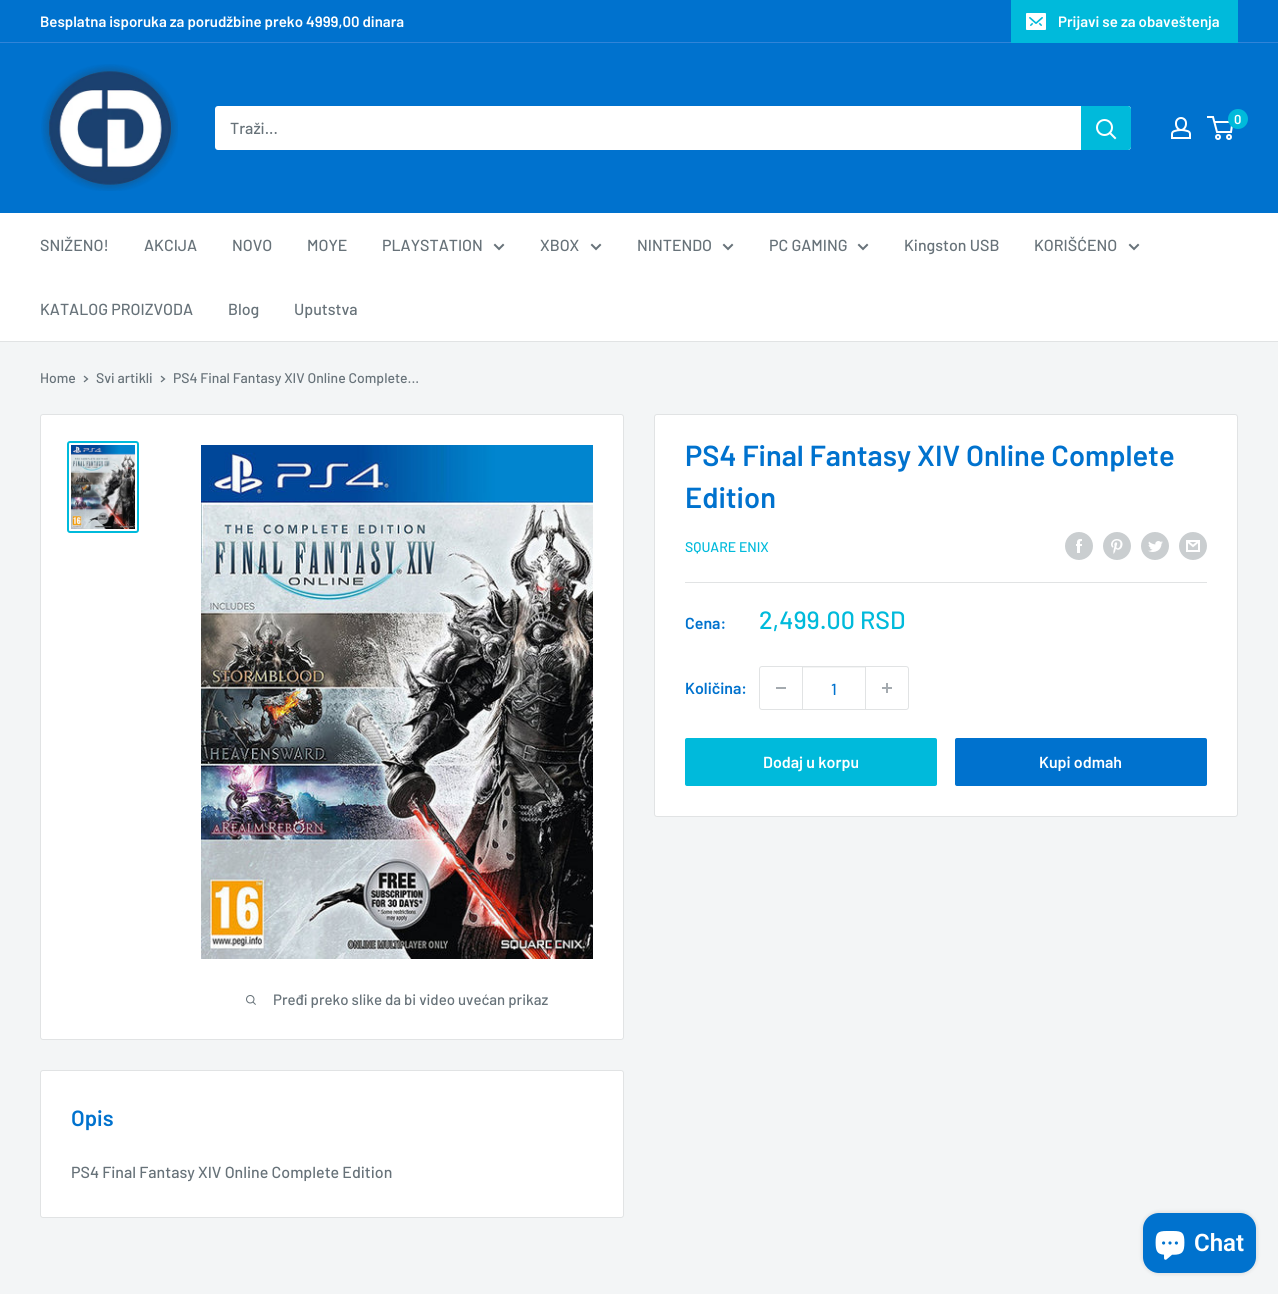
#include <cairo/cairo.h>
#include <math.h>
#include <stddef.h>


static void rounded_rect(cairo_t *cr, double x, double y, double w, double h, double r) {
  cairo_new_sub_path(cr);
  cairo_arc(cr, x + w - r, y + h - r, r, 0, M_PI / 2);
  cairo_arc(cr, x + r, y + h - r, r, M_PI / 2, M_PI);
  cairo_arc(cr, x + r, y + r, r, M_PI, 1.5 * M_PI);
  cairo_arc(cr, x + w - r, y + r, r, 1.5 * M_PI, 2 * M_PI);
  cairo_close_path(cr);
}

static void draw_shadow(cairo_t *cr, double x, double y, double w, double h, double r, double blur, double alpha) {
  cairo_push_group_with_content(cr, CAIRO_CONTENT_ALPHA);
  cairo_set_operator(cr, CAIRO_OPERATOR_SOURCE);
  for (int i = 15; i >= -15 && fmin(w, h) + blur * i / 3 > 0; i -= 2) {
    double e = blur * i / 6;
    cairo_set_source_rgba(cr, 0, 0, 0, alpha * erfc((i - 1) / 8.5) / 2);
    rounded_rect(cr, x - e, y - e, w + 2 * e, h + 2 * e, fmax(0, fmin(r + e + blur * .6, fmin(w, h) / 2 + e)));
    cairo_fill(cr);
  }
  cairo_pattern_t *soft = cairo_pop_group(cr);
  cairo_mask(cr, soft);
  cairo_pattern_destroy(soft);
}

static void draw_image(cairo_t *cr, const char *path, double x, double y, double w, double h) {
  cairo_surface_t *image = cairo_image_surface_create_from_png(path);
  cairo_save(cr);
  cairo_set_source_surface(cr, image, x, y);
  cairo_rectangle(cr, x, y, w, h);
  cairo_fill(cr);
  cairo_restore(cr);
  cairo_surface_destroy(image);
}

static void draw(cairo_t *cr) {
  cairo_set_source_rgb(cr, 243 / 255.0, 245 / 255.0, 246 / 255.0);
  cairo_paint(cr);
  cairo_set_source_rgb(cr, 0, 114 / 255.0, 206 / 255.0);
  cairo_rectangle(cr, 0, 0, 1278, 42);
  cairo_fill(cr);
  cairo_set_source_rgb(cr, 49 / 255.0, 132 / 255.0, 216 / 255.0);
  cairo_rectangle(cr, 0, 42, 1278, 1);
  cairo_fill(cr);
  cairo_set_source_rgb(cr, 0, 186 / 255.0, 219 / 255.0);
  cairo_rectangle(cr, 1011, 0, 227, 43);
  cairo_fill(cr);
  draw_image(cr, "images/1.png", 1026, 13, 20, 17);
  cairo_set_source_rgb(cr, 0, 114 / 255.0, 206 / 255.0);
  cairo_rectangle(cr, 0, 43, 1278, 170);
  cairo_fill(cr);
  draw_image(cr, "images/2.png", 41, 64, 137, 127);
  draw_image(cr, "images/3.png", 1171, 117, 20, 22);
  cairo_arc(cr, 1218, 137, 2, 0, 2 * M_PI);
  cairo_set_source_rgb(cr, 1, 1, 1);
  cairo_stroke(cr);
  cairo_arc(cr, 1229, 137, 2, 0, 2 * M_PI);
  cairo_stroke(cr);
  cairo_new_path(cr);
  cairo_move_to(cr, 1214.5, 122);
  cairo_line_to(cr, 1232.5, 122);
  cairo_line_to(cr, 1231, 132);
  cairo_line_to(cr, 1217, 132);
  cairo_line_to(cr, 1213, 117);
  cairo_line_to(cr, 1207, 117);
  cairo_stroke(cr);
  cairo_set_source_rgb(cr, 0, 186 / 255.0, 219 / 255.0);
  cairo_arc(cr, 1238, 119, 10, 0, 2 * M_PI);
  cairo_fill(cr);
  cairo_set_source_rgb(cr, 1, 1, 1);
  rounded_rect(cr, 215, 106, 916, 44, 3);
  cairo_fill(cr);
  cairo_set_source_rgb(cr, 0, 186 / 255.0, 219 / 255.0);
  cairo_new_path(cr);
  cairo_move_to(cr, 1081, 106);
  cairo_line_to(cr, 1128, 106);
  cairo_curve_to(cr, 1129.5, 106, 1131, 107.5, 1131, 109);
  cairo_line_to(cr, 1131, 147);
  cairo_curve_to(cr, 1131, 148.5, 1129.5, 150, 1128, 150);
  cairo_line_to(cr, 1081, 150);
  cairo_close_path(cr);
  cairo_fill(cr);
  cairo_new_path(cr);
  cairo_move_to(cr, 1115, 138);
  cairo_line_to(cr, 1110, 133);
  cairo_set_source_rgb(cr, 1, 1, 1);
  cairo_set_line_cap(cr, CAIRO_LINE_CAP_SQUARE);
  cairo_stroke(cr);
  cairo_arc(cr, 1104.5, 127.5, 7.5, 0, 2 * M_PI);
  cairo_set_line_cap(cr, CAIRO_LINE_CAP_BUTT);
  cairo_stroke(cr);
  cairo_rectangle(cr, 0, 213, 1278, 128);
  cairo_fill(cr);
  cairo_set_source_rgb(cr, 225 / 255.0, 227 / 255.0, 228 / 255.0);
  cairo_rectangle(cr, 0, 341, 1278, 1);
  cairo_fill(cr);
  cairo_new_path(cr);
  cairo_move_to(cr, 503, 245);
  cairo_line_to(cr, 499, 249);
  cairo_line_to(cr, 495, 245);
  cairo_set_source_rgb(cr, 103 / 255.0, 114 / 255.0, 121 / 255.0);
  cairo_set_line_cap(cr, CAIRO_LINE_CAP_SQUARE);
  cairo_stroke(cr);
  cairo_new_path(cr);
  cairo_move_to(cr, 600, 245);
  cairo_line_to(cr, 596, 249);
  cairo_line_to(cr, 592, 245);
  cairo_stroke(cr);
  cairo_new_path(cr);
  cairo_move_to(cr, 732, 245);
  cairo_line_to(cr, 728, 249);
  cairo_line_to(cr, 724, 245);
  cairo_stroke(cr);
  cairo_new_path(cr);
  cairo_move_to(cr, 867, 245);
  cairo_line_to(cr, 863, 249);
  cairo_line_to(cr, 859, 245);
  cairo_stroke(cr);
  cairo_new_path(cr);
  cairo_move_to(cr, 1138, 245);
  cairo_line_to(cr, 1134, 249);
  cairo_line_to(cr, 1130, 245);
  cairo_stroke(cr);
  cairo_new_path(cr);
  cairo_move_to(cr, 84.5, 376.5);
  cairo_line_to(cr, 87.5, 379);
  cairo_line_to(cr, 84.5, 381.5);
  cairo_set_line_width(cr, 1.3);
  cairo_stroke(cr);
  cairo_new_path(cr);
  cairo_move_to(cr, 161.5, 376.5);
  cairo_line_to(cr, 164.5, 379);
  cairo_line_to(cr, 161.5, 381.5);
  cairo_stroke(cr);
  cairo_set_source_rgb(cr, 1, 1, 1);
  rounded_rect(cr, 654.5, 414.5, 583, 402, 2.5);
  cairo_fill_preserve(cr);
  cairo_set_source_rgb(cr, 225 / 255.0, 227 / 255.0, 228 / 255.0);
  cairo_set_line_width(cr, 1);
  cairo_set_line_cap(cr, CAIRO_LINE_CAP_BUTT);
  cairo_stroke(cr);
  draw_image(cr, "images/4.png", 1065, 532, 28, 28);
  draw_image(cr, "images/5.png", 1103, 532, 28, 28);
  draw_image(cr, "images/6.png", 1141, 532, 28, 28);
  draw_image(cr, "images/7.png", 1179, 532, 28, 28);
  cairo_rectangle(cr, 685, 582, 522, 1);
  cairo_fill(cr);
  rounded_rect(cr, 759.5, 666.5, 149, 43, 2.5);
  cairo_stroke(cr);
  cairo_set_source_rgb(cr, 164 / 255.0, 170 / 255.0, 175 / 255.0);
  cairo_rectangle(cr, 776, 687, 10, 2);
  cairo_fill(cr);
  cairo_set_source_rgb(cr, 243 / 255.0, 244 / 255.0, 244 / 255.0);
  cairo_rectangle(cr, 803, 667, 62, 1);
  cairo_fill(cr);
  cairo_set_source_rgb(cr, 225 / 255.0, 227 / 255.0, 228 / 255.0);
  cairo_rectangle(cr, 865, 667, 1, 42);
  cairo_fill(cr);
  cairo_rectangle(cr, 802, 667, 1, 42);
  cairo_fill(cr);
  draw_image(cr, "images/8.png", 882, 683, 10, 10);
  cairo_set_source_rgb(cr, 0, 186 / 255.0, 219 / 255.0);
  rounded_rect(cr, 685, 738, 252, 48, 2);
  cairo_fill(cr);
  cairo_set_source_rgb(cr, 0, 114 / 255.0, 206 / 255.0);
  rounded_rect(cr, 955, 738, 252, 48, 2);
  cairo_fill(cr);
  cairo_set_source_rgb(cr, 1, 1, 1);
  rounded_rect(cr, 40.5, 414.5, 583, 625, 2.5);
  cairo_fill_preserve(cr);
  cairo_set_source_rgb(cr, 225 / 255.0, 227 / 255.0, 228 / 255.0);
  cairo_stroke(cr);
  rounded_rect(cr, 68, 442, 70, 90, 2);
  cairo_set_source_rgb(cr, 0, 186 / 255.0, 219 / 255.0);
  cairo_set_line_width(cr, 2);
  cairo_stroke(cr);
  draw_image(cr, "images/9.png", 71, 445, 64, 84);
  draw_image(cr, "images/10.png", 201, 445, 392, 514);
  draw_image(cr, "images/11.png", 246, 995, 10, 10);
  cairo_set_source_rgb(cr, 1, 1, 1);
  rounded_rect(cr, 40.5, 1070.5, 583, 147, 2.5);
  cairo_fill_preserve(cr);
  cairo_set_source_rgb(cr, 225 / 255.0, 227 / 255.0, 228 / 255.0);
  cairo_set_line_width(cr, 1);
  cairo_stroke(cr);
  cairo_set_source_rgb(cr, 0, 0, 0);
  draw_shadow(cr, 1143, 1213, 113, 60, 16, 2.5, 0.15);
  cairo_set_source_rgb(cr, 0, 114 / 255.0, 206 / 255.0);
  rounded_rect(cr, 1143, 1213, 113, 60, 16);
  cairo_fill(cr);
  draw_image(cr, "images/12.png", 1155, 1231, 30, 29);
  cairo_select_font_face(cr, "Barlow SemiBold", CAIRO_FONT_SLANT_NORMAL, CAIRO_FONT_WEIGHT_NORMAL);
  cairo_set_font_size(cr, 15);
  cairo_set_source_rgb(cr, 1, 1, 1);
  cairo_move_to(cr, 40, 27);
  cairo_show_text(cr, "Besplatna isporuka za porudžbine preko 4999,00 dinara");
  cairo_move_to(cr, 1058, 27);
  cairo_show_text(cr, "Prijavi se za obaveštenja");
  cairo_set_font_size(cr, 13);
  cairo_move_to(cr, 1234, 124);
  cairo_show_text(cr, "0");
  cairo_select_font_face(cr, "Barlow Medium", CAIRO_FONT_SLANT_NORMAL, CAIRO_FONT_WEIGHT_NORMAL);
  cairo_set_font_size(cr, 16);
  cairo_set_source_rgb(cr, 103 / 255.0, 114 / 255.0, 121 / 255.0);
  cairo_move_to(cr, 230, 134);
  cairo_show_text(cr, "Traži...");
  cairo_move_to(cr, 40, 251);
  cairo_show_text(cr, "SNIŽENO!");
  cairo_move_to(cr, 144, 251);
  cairo_show_text(cr, "AKCIJA");
  cairo_move_to(cr, 232, 251);
  cairo_show_text(cr, "NOVO");
  cairo_move_to(cr, 307, 251);
  cairo_show_text(cr, "MOYE");
  cairo_move_to(cr, 382, 251);
  cairo_show_text(cr, "PLAYSTATION");
  cairo_move_to(cr, 540, 251);
  cairo_show_text(cr, "XBOX");
  cairo_move_to(cr, 637, 251);
  cairo_show_text(cr, "NINTENDO");
  cairo_move_to(cr, 769, 251);
  cairo_show_text(cr, "PC GAMING");
  cairo_move_to(cr, 904, 251);
  cairo_show_text(cr, "Kingston USB");
  cairo_move_to(cr, 1034, 251);
  cairo_show_text(cr, "KORIŠĆENO");
  cairo_move_to(cr, 40, 315);
  cairo_show_text(cr, "KATALOG PROIZVODA");
  cairo_move_to(cr, 228, 315);
  cairo_show_text(cr, "Blog");
  cairo_move_to(cr, 294, 315);
  cairo_show_text(cr, "Uputstva");
  cairo_set_font_size(cr, 14);
  cairo_move_to(cr, 40, 383);
  cairo_show_text(cr, "Home");
  cairo_move_to(cr, 96, 383);
  cairo_show_text(cr, "Svi artikli");
  cairo_move_to(cr, 173, 383);
  cairo_show_text(cr, "PS4 Final Fantasy XIV Online Complete...");
  cairo_select_font_face(cr, "Barlow SemiBold", CAIRO_FONT_SLANT_NORMAL, CAIRO_FONT_WEIGHT_NORMAL);
  cairo_set_font_size(cr, 29);
  cairo_set_source_rgb(cr, 0, 114 / 255.0, 206 / 255.0);
  cairo_move_to(cr, 685, 466);
  cairo_show_text(cr, "PS4 Final Fantasy XIV Online Complete");
  cairo_move_to(cr, 685, 508);
  cairo_show_text(cr, "Edition");
  cairo_select_font_face(cr, "Barlow Medium", CAIRO_FONT_SLANT_NORMAL, CAIRO_FONT_WEIGHT_NORMAL);
  cairo_set_font_size(cr, 14);
  cairo_set_source_rgb(cr, 0, 186 / 255.0, 219 / 255.0);
  cairo_move_to(cr, 685, 552);
  cairo_show_text(cr, "SQUARE ENIX");
  cairo_select_font_face(cr, "Barlow SemiBold", CAIRO_FONT_SLANT_NORMAL, CAIRO_FONT_WEIGHT_NORMAL);
  cairo_set_font_size(cr, 16);
  cairo_set_source_rgb(cr, 0, 114 / 255.0, 206 / 255.0);
  cairo_move_to(cr, 685, 629);
  cairo_show_text(cr, "Cena:");
  cairo_select_font_face(cr, "Barlow Medium", CAIRO_FONT_SLANT_NORMAL, CAIRO_FONT_WEIGHT_NORMAL);
  cairo_set_font_size(cr, 25);
  cairo_set_source_rgb(cr, 0, 186 / 255.0, 219 / 255.0);
  cairo_move_to(cr, 759, 629);
  cairo_show_text(cr, "2,499.00 RSD");
  cairo_select_font_face(cr, "Barlow SemiBold", CAIRO_FONT_SLANT_NORMAL, CAIRO_FONT_WEIGHT_NORMAL);
  cairo_set_font_size(cr, 16);
  cairo_set_source_rgb(cr, 0, 114 / 255.0, 206 / 255.0);
  cairo_move_to(cr, 685, 694);
  cairo_show_text(cr, "Količina:");
  cairo_select_font_face(cr, "Barlow Medium", CAIRO_FONT_SLANT_NORMAL, CAIRO_FONT_WEIGHT_NORMAL);
  cairo_move_to(cr, 831, 695);
  cairo_show_text(cr, "1");
  cairo_select_font_face(cr, "Barlow SemiBold", CAIRO_FONT_SLANT_NORMAL, CAIRO_FONT_WEIGHT_NORMAL);
  cairo_set_source_rgb(cr, 1, 1, 1);
  cairo_move_to(cr, 763, 768);
  cairo_show_text(cr, "Dodaj u korpu");
  cairo_move_to(cr, 1039, 768);
  cairo_show_text(cr, "Kupi odmah");
  cairo_select_font_face(cr, "Barlow Medium", CAIRO_FONT_SLANT_NORMAL, CAIRO_FONT_WEIGHT_NORMAL);
  cairo_set_font_size(cr, 15);
  cairo_set_source_rgb(cr, 103 / 255.0, 114 / 255.0, 121 / 255.0);
  cairo_move_to(cr, 273, 1005);
  cairo_show_text(cr, "Pređi preko slike da bi video uvećan prikaz");
  cairo_select_font_face(cr, "Barlow SemiBold", CAIRO_FONT_SLANT_NORMAL, CAIRO_FONT_WEIGHT_NORMAL);
  cairo_set_font_size(cr, 22);
  cairo_set_source_rgb(cr, 0, 114 / 255.0, 206 / 255.0);
  cairo_move_to(cr, 71, 1126);
  cairo_show_text(cr, "Opis");
  cairo_select_font_face(cr, "Barlow Medium", CAIRO_FONT_SLANT_NORMAL, CAIRO_FONT_WEIGHT_NORMAL);
  cairo_set_font_size(cr, 16);
  cairo_set_source_rgb(cr, 103 / 255.0, 114 / 255.0, 121 / 255.0);
  cairo_move_to(cr, 71, 1178);
  cairo_show_text(cr, "PS4 Final Fantasy XIV Online Complete Edition");
  cairo_select_font_face(cr, "Roboto SemiBold", CAIRO_FONT_SLANT_NORMAL, CAIRO_FONT_WEIGHT_NORMAL);
  cairo_set_font_size(cr, 24);
  cairo_set_source_rgb(cr, 1, 1, 1);
  cairo_move_to(cr, 1194, 1251);
  cairo_show_text(cr, "Chat");
}

int main(void) {
  cairo_surface_t *surface = cairo_image_surface_create(CAIRO_FORMAT_RGB24, 1278, 1294);
  cairo_t *cr = cairo_create(surface);
  cairo_font_options_t *options = cairo_font_options_create();
  cairo_font_options_set_hint_metrics(options, CAIRO_HINT_METRICS_OFF);
  cairo_font_options_set_hint_style(options, CAIRO_HINT_STYLE_NONE);
  cairo_set_font_options(cr, options);
  cairo_set_miter_limit(cr, 4);
  draw(cr);
  cairo_surface_write_to_png(surface, "out.png");
  cairo_font_options_destroy(options);
  cairo_destroy(cr);
  cairo_surface_destroy(surface);
  return 0;
}
